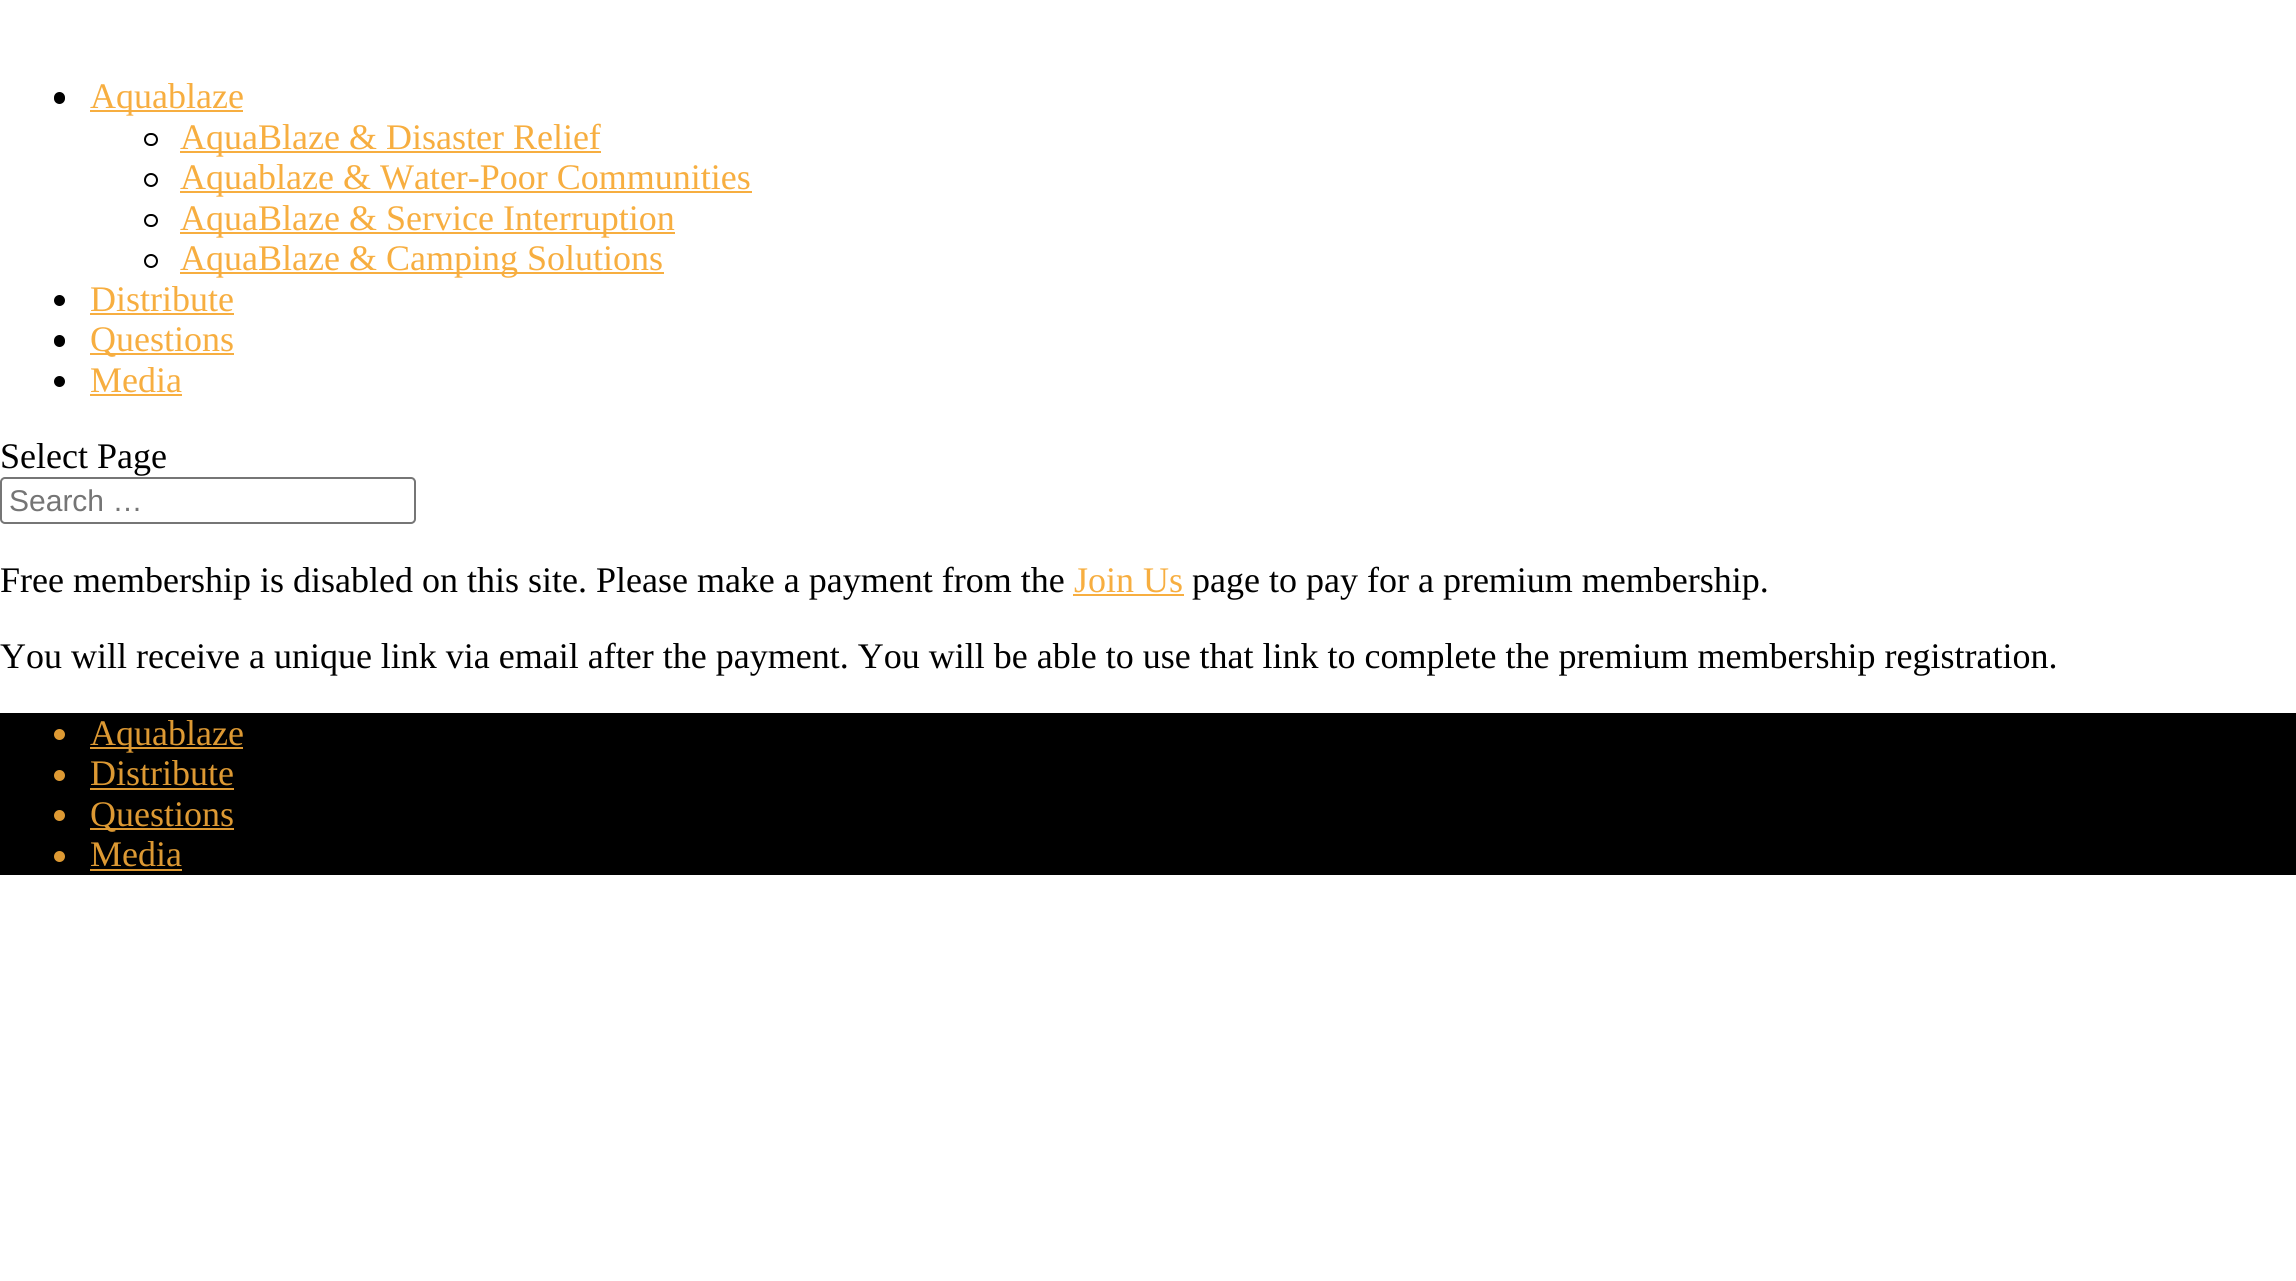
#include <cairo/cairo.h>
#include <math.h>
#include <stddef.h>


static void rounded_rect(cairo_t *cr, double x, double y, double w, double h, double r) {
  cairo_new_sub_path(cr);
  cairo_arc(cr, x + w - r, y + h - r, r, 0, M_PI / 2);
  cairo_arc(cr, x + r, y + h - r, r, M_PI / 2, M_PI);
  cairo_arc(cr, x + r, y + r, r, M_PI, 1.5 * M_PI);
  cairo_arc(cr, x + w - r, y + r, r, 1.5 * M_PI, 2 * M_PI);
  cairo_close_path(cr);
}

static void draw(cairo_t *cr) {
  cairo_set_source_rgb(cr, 1, 1, 1);
  cairo_paint(cr);
  cairo_set_source_rgb(cr, 0, 0, 0);
  rounded_rect(cr, 54, 92, 11, 12, 5.5);
  cairo_fill(cr);
  cairo_set_source_rgb(cr, 247 / 255.0, 174 / 255.0, 64 / 255.0);
  cairo_rectangle(cr, 90, 110, 153, 2);
  cairo_fill(cr);
  rounded_rect(cr, 145, 134, 12, 11, 5.5);
  cairo_set_source_rgb(cr, 0, 0, 0);
  cairo_stroke(cr);
  cairo_set_source_rgb(cr, 247 / 255.0, 174 / 255.0, 64 / 255.0);
  cairo_rectangle(cr, 180, 151, 421, 2);
  cairo_fill(cr);
  cairo_arc(cr, 151, 180, 6, 0, 2 * M_PI);
  cairo_set_source_rgb(cr, 0, 0, 0);
  cairo_stroke(cr);
  cairo_set_source_rgb(cr, 247 / 255.0, 174 / 255.0, 64 / 255.0);
  cairo_rectangle(cr, 180, 191, 572, 2);
  cairo_fill(cr);
  rounded_rect(cr, 145, 215, 12, 11, 5.5);
  cairo_set_source_rgb(cr, 0, 0, 0);
  cairo_stroke(cr);
  cairo_set_source_rgb(cr, 247 / 255.0, 174 / 255.0, 64 / 255.0);
  cairo_rectangle(cr, 180, 232, 495, 2);
  cairo_fill(cr);
  cairo_arc(cr, 151, 261, 6, 0, 2 * M_PI);
  cairo_set_source_rgb(cr, 0, 0, 0);
  cairo_stroke(cr);
  cairo_set_source_rgb(cr, 247 / 255.0, 174 / 255.0, 64 / 255.0);
  cairo_rectangle(cr, 180, 272, 484, 2);
  cairo_fill(cr);
  cairo_set_source_rgb(cr, 0, 0, 0);
  cairo_arc(cr, 59.5, 300.5, 5.5, 0, 2 * M_PI);
  cairo_fill(cr);
  cairo_set_source_rgb(cr, 247 / 255.0, 174 / 255.0, 64 / 255.0);
  cairo_rectangle(cr, 90, 313, 144, 2);
  cairo_fill(cr);
  cairo_set_source_rgb(cr, 0, 0, 0);
  rounded_rect(cr, 54, 335, 11, 12, 5.5);
  cairo_fill(cr);
  cairo_set_source_rgb(cr, 247 / 255.0, 174 / 255.0, 64 / 255.0);
  cairo_rectangle(cr, 90, 353, 144, 2);
  cairo_fill(cr);
  cairo_set_source_rgb(cr, 0, 0, 0);
  cairo_arc(cr, 59.5, 381.5, 5.5, 0, 2 * M_PI);
  cairo_fill(cr);
  cairo_set_source_rgb(cr, 247 / 255.0, 174 / 255.0, 64 / 255.0);
  cairo_rectangle(cr, 90, 394, 92, 2);
  cairo_fill(cr);
  rounded_rect(cr, 1, 478, 414, 45, 4);
  cairo_set_source_rgb(cr, 118 / 255.0, 118 / 255.0, 118 / 255.0);
  cairo_stroke(cr);
  cairo_set_source_rgb(cr, 247 / 255.0, 174 / 255.0, 64 / 255.0);
  cairo_rectangle(cr, 1073, 594, 111, 2);
  cairo_fill(cr);
  cairo_set_source_rgb(cr, 0, 0, 0);
  cairo_rectangle(cr, 0, 713, 2296, 162);
  cairo_fill(cr);
  cairo_set_source_rgb(cr, 221 / 255.0, 153 / 255.0, 51 / 255.0);
  cairo_arc(cr, 59.5, 734.5, 5.5, 0, 2 * M_PI);
  cairo_fill(cr);
  cairo_rectangle(cr, 90, 747, 153, 2);
  cairo_fill(cr);
  cairo_arc(cr, 59.5, 775.5, 5.5, 0, 2 * M_PI);
  cairo_fill(cr);
  cairo_rectangle(cr, 90, 788, 144, 2);
  cairo_fill(cr);
  cairo_arc(cr, 59.5, 815.5, 5.5, 0, 2 * M_PI);
  cairo_fill(cr);
  cairo_rectangle(cr, 90, 828, 144, 2);
  cairo_fill(cr);
  cairo_arc(cr, 59.5, 856.5, 5.5, 0, 2 * M_PI);
  cairo_fill(cr);
  cairo_rectangle(cr, 90, 869, 92, 2);
  cairo_fill(cr);
  cairo_select_font_face(cr, "Liberation Serif", CAIRO_FONT_SLANT_NORMAL, CAIRO_FONT_WEIGHT_NORMAL);
  cairo_set_font_size(cr, 36);
  cairo_set_source_rgb(cr, 247 / 255.0, 174 / 255.0, 64 / 255.0);
  cairo_move_to(cr, 90, 108);
  cairo_show_text(cr, "Aquablaze");
  cairo_move_to(cr, 180, 149);
  cairo_show_text(cr, "AquaBlaze & Disaster Relief");
  cairo_move_to(cr, 180, 189);
  cairo_show_text(cr, "Aquablaze & Water-Poor Communities");
  cairo_move_to(cr, 180, 230);
  cairo_show_text(cr, "AquaBlaze & Service Interruption");
  cairo_move_to(cr, 180, 270);
  cairo_show_text(cr, "AquaBlaze & Camping Solutions");
  cairo_move_to(cr, 90, 311);
  cairo_show_text(cr, "Distribute");
  cairo_move_to(cr, 90, 351);
  cairo_show_text(cr, "Questions");
  cairo_move_to(cr, 90, 392);
  cairo_show_text(cr, "Media");
  cairo_set_source_rgb(cr, 0, 0, 0);
  cairo_move_to(cr, 0, 468);
  cairo_show_text(cr, "Select Page");
  cairo_select_font_face(cr, "Liberation Sans", CAIRO_FONT_SLANT_NORMAL, CAIRO_FONT_WEIGHT_NORMAL);
  cairo_set_font_size(cr, 30);
  cairo_set_source_rgb(cr, 117 / 255.0, 117 / 255.0, 117 / 255.0);
  cairo_move_to(cr, 9, 511);
  cairo_show_text(cr, "Search …");
  cairo_select_font_face(cr, "Liberation Serif", CAIRO_FONT_SLANT_NORMAL, CAIRO_FONT_WEIGHT_NORMAL);
  cairo_set_font_size(cr, 36);
  cairo_set_source_rgb(cr, 0, 0, 0);
  cairo_move_to(cr, 0, 592);
  cairo_show_text(cr, "Free membership is disabled on this site. Please make a payment from the");
  cairo_set_source_rgb(cr, 247 / 255.0, 174 / 255.0, 64 / 255.0);
  cairo_move_to(cr, 1074, 592);
  cairo_show_text(cr, "Join Us");
  cairo_set_source_rgb(cr, 0, 0, 0);
  cairo_move_to(cr, 1192, 592);
  cairo_show_text(cr, "page to pay for a premium membership.");
  cairo_move_to(cr, 0, 668);
  cairo_show_text(cr, "You will receive a unique link via email after the payment. You will be able to use that link to complete the premium membership registration.");
  cairo_set_source_rgb(cr, 221 / 255.0, 153 / 255.0, 51 / 255.0);
  cairo_move_to(cr, 90, 745);
  cairo_show_text(cr, "Aquablaze");
  cairo_move_to(cr, 90, 785);
  cairo_show_text(cr, "Distribute");
  cairo_move_to(cr, 90, 826);
  cairo_show_text(cr, "Questions");
  cairo_move_to(cr, 90, 866);
  cairo_show_text(cr, "Media");
}

int main(void) {
  cairo_surface_t *surface = cairo_image_surface_create(CAIRO_FORMAT_RGB24, 2296, 1281);
  cairo_t *cr = cairo_create(surface);
  cairo_font_options_t *options = cairo_font_options_create();
  cairo_font_options_set_hint_metrics(options, CAIRO_HINT_METRICS_OFF);
  cairo_font_options_set_hint_style(options, CAIRO_HINT_STYLE_NONE);
  cairo_set_font_options(cr, options);
  cairo_set_miter_limit(cr, 4);
  draw(cr);
  cairo_surface_write_to_png(surface, "out.png");
  cairo_font_options_destroy(options);
  cairo_destroy(cr);
  cairo_surface_destroy(surface);
  return 0;
}
